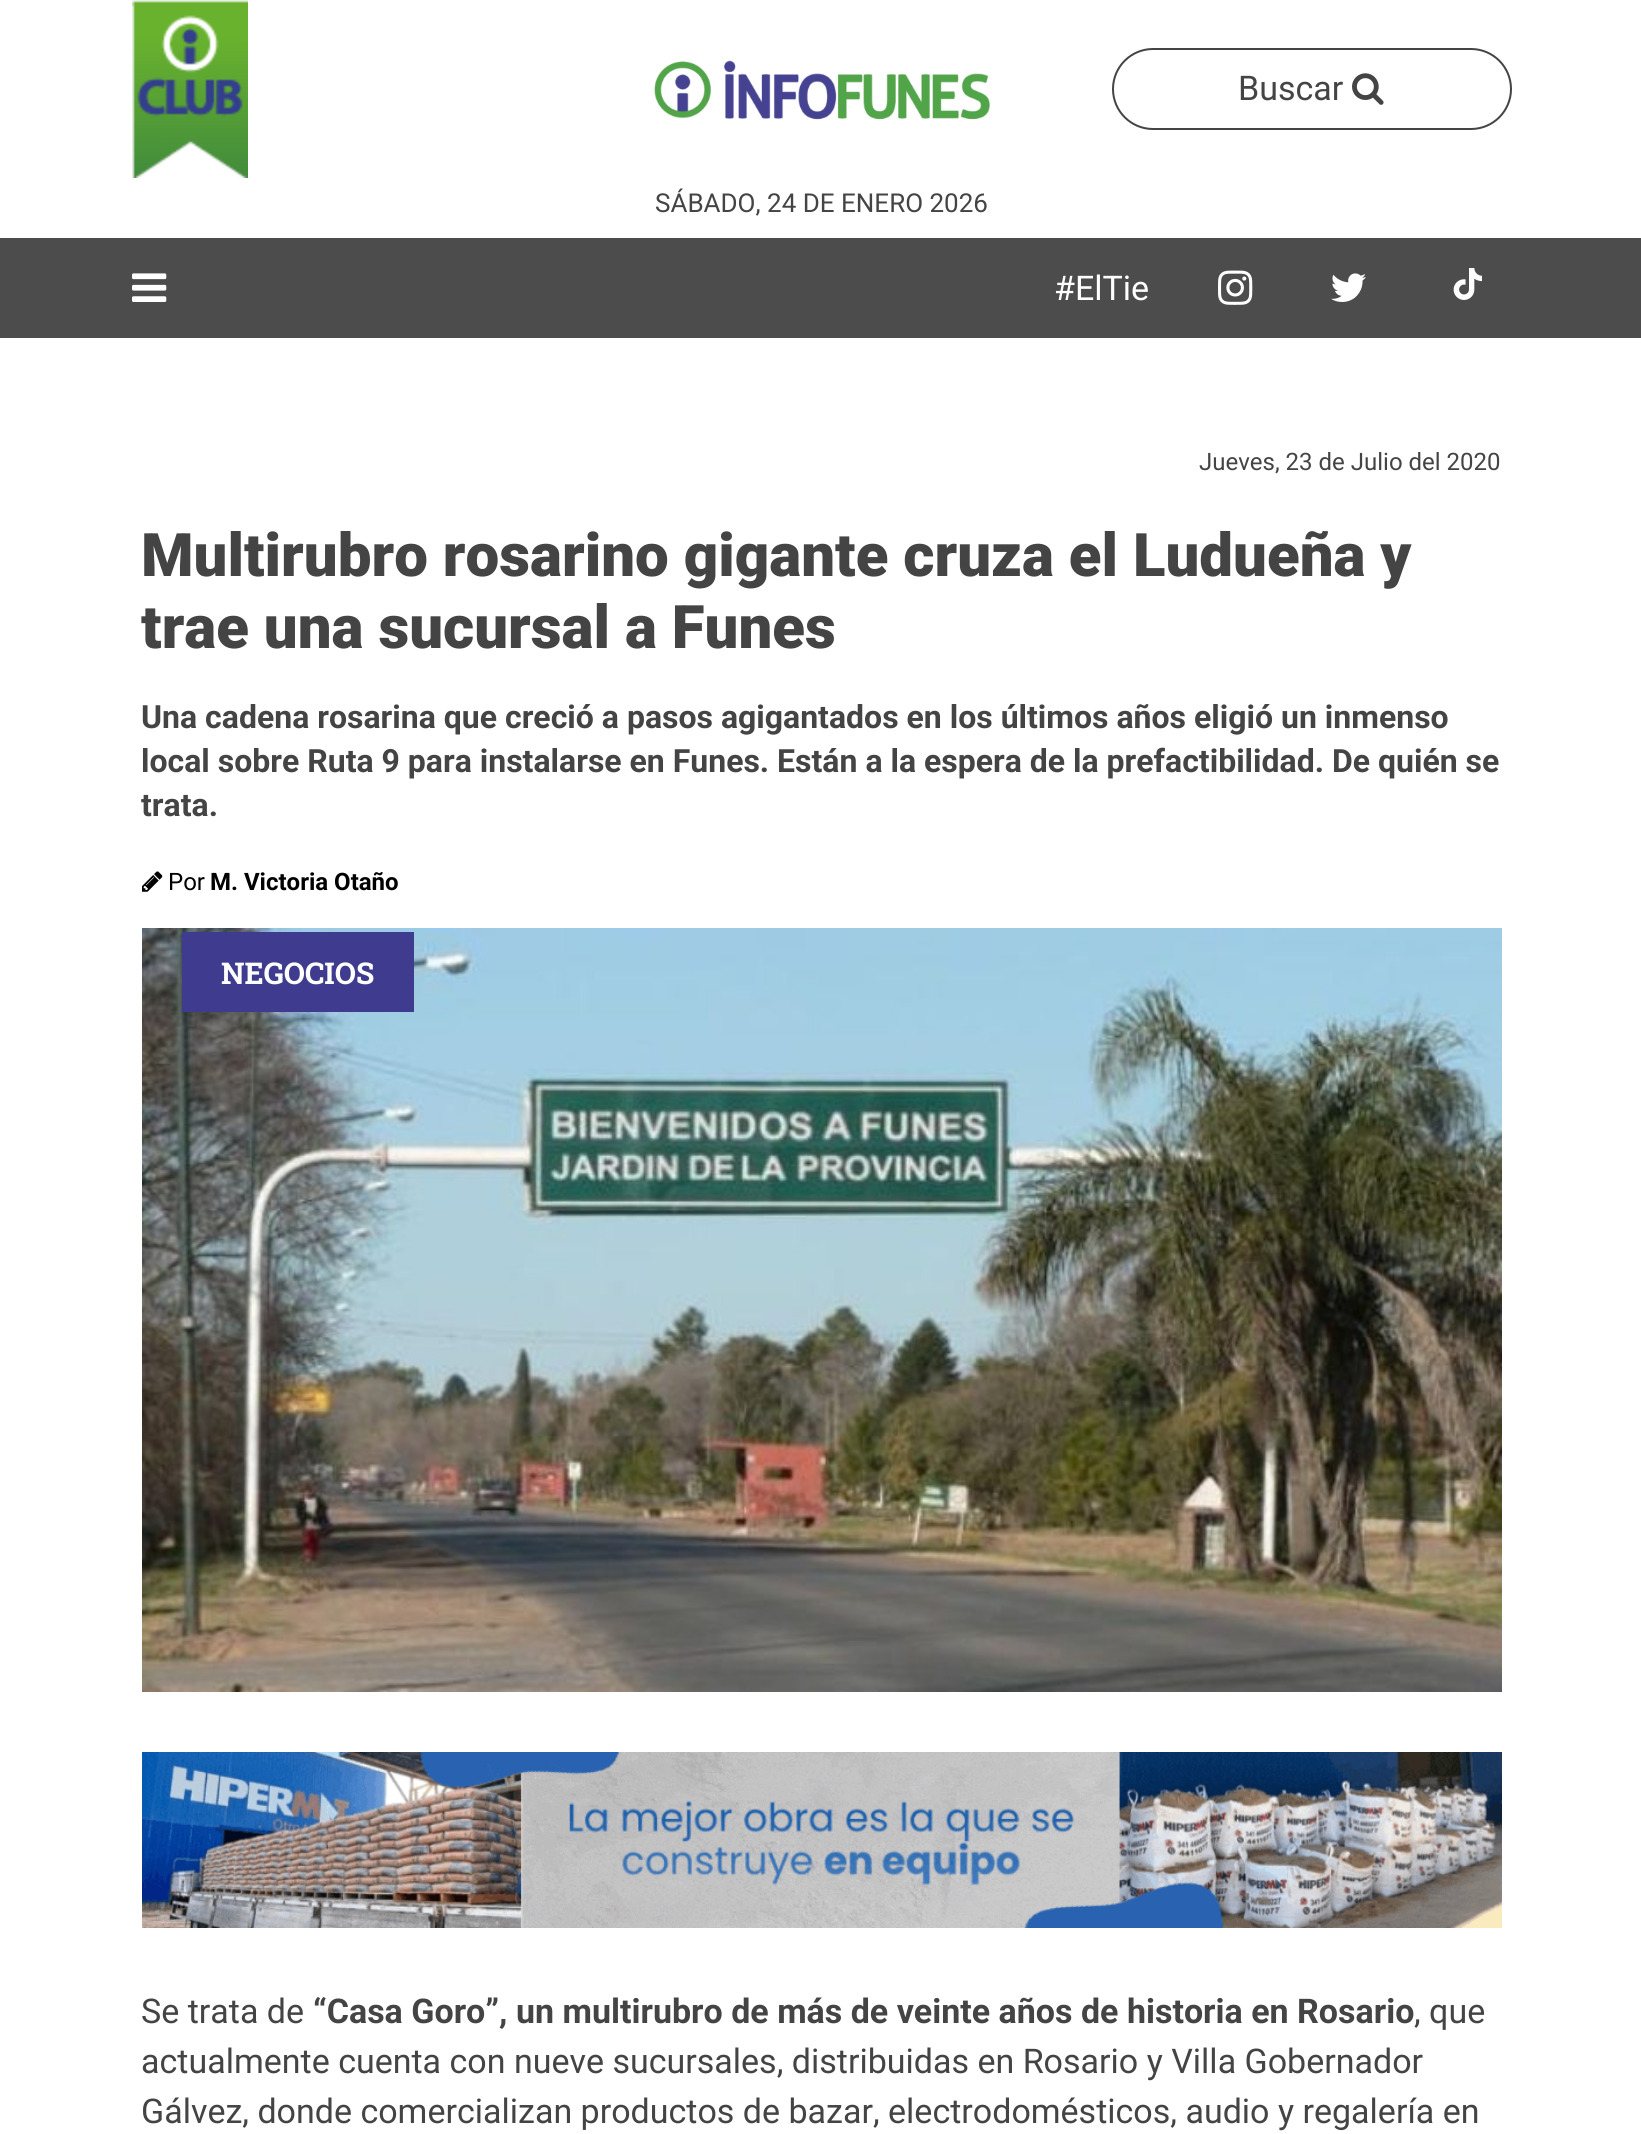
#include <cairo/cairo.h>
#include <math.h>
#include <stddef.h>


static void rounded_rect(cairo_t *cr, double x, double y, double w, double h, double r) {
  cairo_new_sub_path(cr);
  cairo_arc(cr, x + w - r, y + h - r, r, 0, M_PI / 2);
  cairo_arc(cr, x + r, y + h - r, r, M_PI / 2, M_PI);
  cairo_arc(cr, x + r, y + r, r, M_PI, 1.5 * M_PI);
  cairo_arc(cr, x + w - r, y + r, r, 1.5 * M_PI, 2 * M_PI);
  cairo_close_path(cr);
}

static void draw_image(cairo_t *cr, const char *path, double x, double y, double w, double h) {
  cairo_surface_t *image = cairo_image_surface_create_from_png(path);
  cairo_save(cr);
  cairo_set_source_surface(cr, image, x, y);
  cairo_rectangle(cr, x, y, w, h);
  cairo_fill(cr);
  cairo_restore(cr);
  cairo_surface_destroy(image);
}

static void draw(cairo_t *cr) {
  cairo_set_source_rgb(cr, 1, 1, 1);
  cairo_paint(cr);
  draw_image(cr, "images/1.png", 132, 0, 116, 178);
  draw_image(cr, "images/2.png", 654, 60, 336, 60);
  rounded_rect(cr, 1113, 49, 398, 80, 40);
  cairo_set_source_rgb(cr, 68 / 255.0, 68 / 255.0, 68 / 255.0);
  cairo_stroke(cr);
  draw_image(cr, "images/3.png", 1352, 73, 32, 32);
  cairo_set_source_rgb(cr, 76 / 255.0, 76 / 255.0, 76 / 255.0);
  cairo_rectangle(cr, 0, 238, 1641, 100);
  cairo_fill(cr);
  draw_image(cr, "images/4.png", 132, 273, 35, 29);
  draw_image(cr, "images/5.png", 1218, 270, 35, 35);
  draw_image(cr, "images/6.png", 1331, 273, 35, 29);
  draw_image(cr, "images/7.png", 1453, 268, 29, 32);
  draw_image(cr, "images/8.png", 142, 871, 21, 21);
  draw_image(cr, "images/9.png", 142, 928, 1360, 764);
  cairo_set_source_rgb(cr, 63 / 255.0, 59 / 255.0, 143 / 255.0);
  cairo_rectangle(cr, 182, 932, 232, 80);
  cairo_fill(cr);
  draw_image(cr, "images/10.png", 142, 1752, 1360, 176);
  cairo_select_font_face(cr, "Roboto", CAIRO_FONT_SLANT_NORMAL, CAIRO_FONT_WEIGHT_NORMAL);
  cairo_set_font_size(cr, 34);
  cairo_set_source_rgb(cr, 68 / 255.0, 68 / 255.0, 68 / 255.0);
  cairo_move_to(cr, 1238, 100);
  cairo_show_text(cr, "Buscar");
  cairo_set_font_size(cr, 26);
  cairo_move_to(cr, 655, 212);
  cairo_show_text(cr, "SÁBADO, 24 DE ENERO 2026");
  cairo_set_font_size(cr, 34);
  cairo_set_source_rgb(cr, 1, 1, 1);
  cairo_move_to(cr, 1054, 300);
  cairo_show_text(cr, "#ElTie");
  cairo_set_font_size(cr, 24);
  cairo_set_source_rgb(cr, 68 / 255.0, 68 / 255.0, 68 / 255.0);
  cairo_move_to(cr, 1199, 470);
  cairo_show_text(cr, "Jueves, 23 de Julio del 2020");
  cairo_select_font_face(cr, "Roboto Black", CAIRO_FONT_SLANT_NORMAL, CAIRO_FONT_WEIGHT_NORMAL);
  cairo_set_font_size(cr, 60);
  cairo_move_to(cr, 141, 576);
  cairo_show_text(cr, "Multirubro rosarino gigante cruza el Ludueña y");
  cairo_move_to(cr, 141, 648);
  cairo_show_text(cr, "trae una sucursal a Funes");
  cairo_select_font_face(cr, "Roboto", CAIRO_FONT_SLANT_NORMAL, CAIRO_FONT_WEIGHT_BOLD);
  cairo_set_font_size(cr, 32);
  cairo_move_to(cr, 141, 728);
  cairo_show_text(cr, "Una cadena rosarina que creció a pasos agigantados en los últimos años eligió un inmenso");
  cairo_move_to(cr, 141, 772);
  cairo_show_text(cr, "local sobre Ruta 9 para instalarse en Funes. Están a la espera de la prefactibilidad. De quién se");
  cairo_move_to(cr, 141, 816);
  cairo_show_text(cr, "trata.");
  cairo_select_font_face(cr, "Roboto", CAIRO_FONT_SLANT_NORMAL, CAIRO_FONT_WEIGHT_NORMAL);
  cairo_set_font_size(cr, 24);
  cairo_set_source_rgb(cr, 0, 0, 0);
  cairo_move_to(cr, 168, 890);
  cairo_show_text(cr, "Por");
  cairo_select_font_face(cr, "Roboto", CAIRO_FONT_SLANT_NORMAL, CAIRO_FONT_WEIGHT_BOLD);
  cairo_move_to(cr, 210, 890);
  cairo_show_text(cr, "M. Victoria Otaño");
  cairo_select_font_face(cr, "Roboto Slab", CAIRO_FONT_SLANT_NORMAL, CAIRO_FONT_WEIGHT_BOLD);
  cairo_set_font_size(cr, 30);
  cairo_set_source_rgb(cr, 1, 1, 1);
  cairo_move_to(cr, 221, 984);
  cairo_show_text(cr, "NEGOCIOS");
  cairo_select_font_face(cr, "Roboto", CAIRO_FONT_SLANT_NORMAL, CAIRO_FONT_WEIGHT_NORMAL);
  cairo_set_font_size(cr, 34);
  cairo_set_source_rgb(cr, 68 / 255.0, 68 / 255.0, 68 / 255.0);
  cairo_move_to(cr, 141, 2023);
  cairo_show_text(cr, "Se trata de");
  cairo_select_font_face(cr, "Roboto", CAIRO_FONT_SLANT_NORMAL, CAIRO_FONT_WEIGHT_BOLD);
  cairo_move_to(cr, 313, 2023);
  cairo_show_text(cr, "“Casa Goro”, un multirubro de más de veinte años de historia en Rosario");
  cairo_select_font_face(cr, "Roboto", CAIRO_FONT_SLANT_NORMAL, CAIRO_FONT_WEIGHT_NORMAL);
  cairo_move_to(cr, 1414, 2023);
  cairo_show_text(cr, ", que");
  cairo_move_to(cr, 141, 2073);
  cairo_show_text(cr, "actualmente cuenta con nueve sucursales, distribuidas en Rosario y Villa Gobernador");
  cairo_move_to(cr, 141, 2123);
  cairo_show_text(cr, "Gálvez, donde comercializan productos de bazar, electrodomésticos, audio y regalería en");
}

int main(void) {
  cairo_surface_t *surface = cairo_image_surface_create(CAIRO_FORMAT_RGB24, 1641, 2134);
  cairo_t *cr = cairo_create(surface);
  cairo_font_options_t *options = cairo_font_options_create();
  cairo_font_options_set_hint_metrics(options, CAIRO_HINT_METRICS_OFF);
  cairo_font_options_set_hint_style(options, CAIRO_HINT_STYLE_NONE);
  cairo_set_font_options(cr, options);
  cairo_set_miter_limit(cr, 4);
  draw(cr);
  cairo_surface_write_to_png(surface, "out.png");
  cairo_font_options_destroy(options);
  cairo_destroy(cr);
  cairo_surface_destroy(surface);
  return 0;
}
